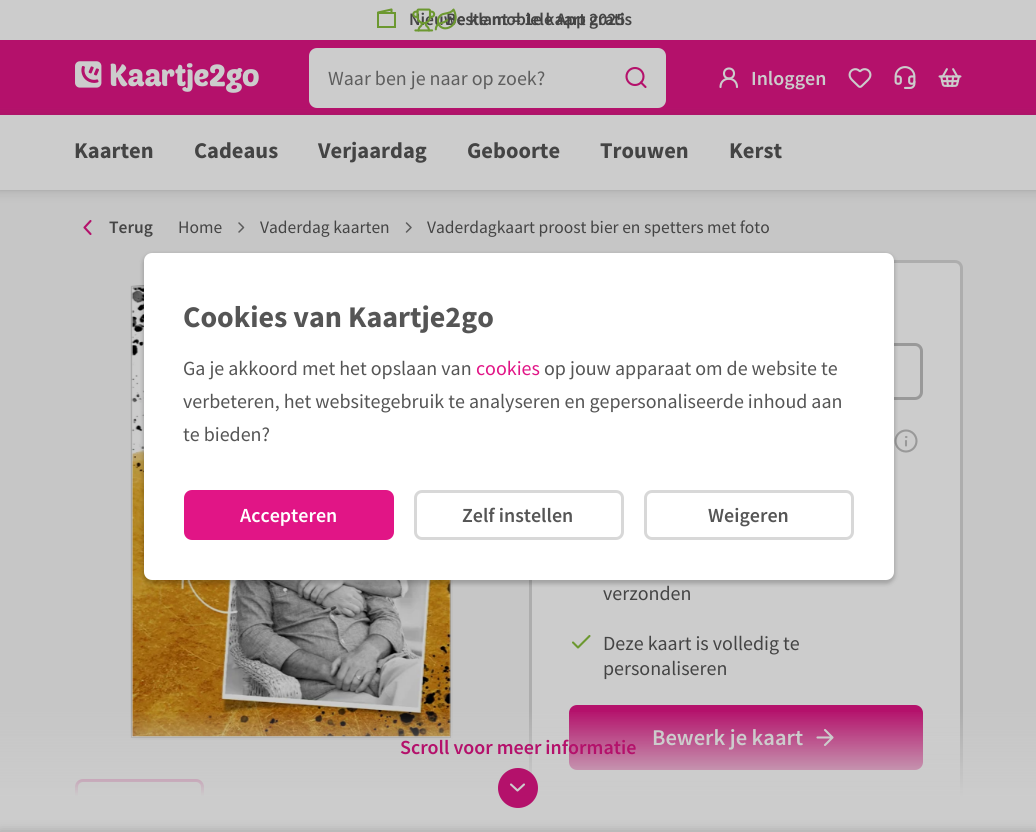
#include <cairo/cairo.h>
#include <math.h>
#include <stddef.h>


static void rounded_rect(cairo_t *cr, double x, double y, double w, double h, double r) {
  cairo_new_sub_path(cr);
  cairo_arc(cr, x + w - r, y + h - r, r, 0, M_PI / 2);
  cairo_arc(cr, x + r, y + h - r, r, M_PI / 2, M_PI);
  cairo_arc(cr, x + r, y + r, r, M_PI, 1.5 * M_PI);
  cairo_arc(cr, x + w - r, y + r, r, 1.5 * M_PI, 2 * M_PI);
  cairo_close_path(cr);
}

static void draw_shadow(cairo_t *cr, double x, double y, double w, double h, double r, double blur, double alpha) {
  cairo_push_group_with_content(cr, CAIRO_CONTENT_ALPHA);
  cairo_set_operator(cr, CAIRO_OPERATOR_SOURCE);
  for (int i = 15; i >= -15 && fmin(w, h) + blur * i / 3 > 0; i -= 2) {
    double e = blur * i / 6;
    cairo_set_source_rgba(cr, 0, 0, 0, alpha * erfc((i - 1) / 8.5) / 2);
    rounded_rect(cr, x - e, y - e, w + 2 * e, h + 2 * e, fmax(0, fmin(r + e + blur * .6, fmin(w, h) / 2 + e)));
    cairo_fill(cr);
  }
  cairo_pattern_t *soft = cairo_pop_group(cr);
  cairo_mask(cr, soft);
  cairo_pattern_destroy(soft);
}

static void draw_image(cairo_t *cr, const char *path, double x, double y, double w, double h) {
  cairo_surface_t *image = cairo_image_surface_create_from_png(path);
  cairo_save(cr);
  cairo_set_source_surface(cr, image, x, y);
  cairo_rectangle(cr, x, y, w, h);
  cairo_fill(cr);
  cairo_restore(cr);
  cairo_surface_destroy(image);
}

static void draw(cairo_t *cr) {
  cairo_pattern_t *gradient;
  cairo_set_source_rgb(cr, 204 / 255.0, 204 / 255.0, 204 / 255.0);
  cairo_paint(cr);
  cairo_new_path(cr);
  cairo_move_to(cr, 378, 12.5);
  cairo_line_to(cr, 391.5, 9.5);
  cairo_line_to(cr, 391.5, 11.5);
  cairo_set_source_rgb(cr, 108 / 255.0, 152 / 255.0, 48 / 255.0);
  cairo_set_line_width(cr, 2.1);
  cairo_set_line_cap(cr, CAIRO_LINE_CAP_ROUND);
  cairo_set_line_join(cr, CAIRO_LINE_JOIN_ROUND);
  cairo_stroke(cr);
  cairo_rectangle(cr, 378, 13, 17, 14);
  cairo_set_line_width(cr, 2);
  cairo_set_line_cap(cr, CAIRO_LINE_CAP_BUTT);
  cairo_set_line_join(cr, CAIRO_LINE_JOIN_MITER);
  cairo_stroke(cr);
  cairo_set_source_rgb(cr, 180 / 255.0, 17 / 255.0, 107 / 255.0);
  cairo_rectangle(cr, 0, 40, 1036, 75);
  cairo_fill(cr);
  draw_image(cr, "images/3.png", 75, 61, 184, 32);
  cairo_set_source_rgb(cr, 198 / 255.0, 198 / 255.0, 198 / 255.0);
  cairo_rectangle(cr, 0, 190, 1036, 606);
  cairo_fill(cr);
  cairo_set_source_rgb(cr, 79 / 255.0, 79 / 255.0, 79 / 255.0);
  draw_shadow(cr, -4, 114, 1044, 82, 0, 4, 0.1);
  cairo_set_source_rgb(cr, 204 / 255.0, 204 / 255.0, 204 / 255.0);
  rounded_rect(cr, 309, 48, 357, 60, 8);
  cairo_fill(cr);
  cairo_new_path(cr);
  cairo_move_to(cr, 645.5, 87);
  cairo_line_to(cr, 641, 82.5);
  cairo_set_source_rgb(cr, 180 / 255.0, 17 / 255.0, 107 / 255.0);
  cairo_set_line_width(cr, 2.1);
  cairo_set_line_cap(cr, CAIRO_LINE_CAP_ROUND);
  cairo_set_line_join(cr, CAIRO_LINE_JOIN_ROUND);
  cairo_stroke(cr);
  cairo_arc(cr, 635, 76.5, 8.5, 0, 2 * M_PI);
  cairo_set_line_cap(cr, CAIRO_LINE_CAP_BUTT);
  cairo_set_line_join(cr, CAIRO_LINE_JOIN_MITER);
  cairo_stroke(cr);
  cairo_arc(cr, 729, 73.5, 5, 0, 2 * M_PI);
  cairo_set_source_rgb(cr, 204 / 255.0, 204 / 255.0, 204 / 255.0);
  cairo_stroke(cr);
  cairo_new_path(cr);
  cairo_move_to(cr, 737, 87);
  cairo_curve_to(cr, 737, 76, 720.5, 76, 720.5, 87);
  cairo_set_line_cap(cr, CAIRO_LINE_CAP_ROUND);
  cairo_set_line_join(cr, CAIRO_LINE_JOIN_ROUND);
  cairo_stroke(cr);
  draw_image(cr, "images/4.png", 848, 68, 24, 20);
  draw_image(cr, "images/5.png", 894, 66, 22, 23);
  draw_image(cr, "images/6.png", 938, 68, 24, 19);
  cairo_set_source_rgb(cr, 53 / 255.0, 53 / 255.0, 53 / 255.0);
  draw_shadow(cr, 0, 116, 1036, 75, 0, 1, 0.1);
  cairo_set_source_rgb(cr, 204 / 255.0, 204 / 255.0, 204 / 255.0);
  cairo_rectangle(cr, 0, 115, 1036, 75);
  cairo_fill(cr);
  cairo_new_path(cr);
  cairo_move_to(cr, 90.5, 234);
  cairo_line_to(cr, 84.5, 227.5);
  cairo_line_to(cr, 90.5, 221);
  cairo_set_source_rgb(cr, 180 / 255.0, 17 / 255.0, 107 / 255.0);
  cairo_stroke(cr);
  cairo_new_path(cr);
  cairo_move_to(cr, 239, 232);
  cairo_line_to(cr, 243.5, 227.5);
  cairo_line_to(cr, 239, 223);
  cairo_set_source_rgb(cr, 92 / 255.0, 92 / 255.0, 92 / 255.0);
  cairo_set_line_width(cr, 1.5);
  cairo_stroke(cr);
  cairo_new_path(cr);
  cairo_move_to(cr, 406.5, 232);
  cairo_line_to(cr, 411, 227.5);
  cairo_line_to(cr, 406.5, 223);
  cairo_stroke(cr);
  cairo_new_path(cr);
  cairo_move_to(cr, 131.5, 286.5);
  cairo_line_to(cr, 419, 266.5);
  cairo_line_to(cr, 419, 716.5);
  cairo_line_to(cr, 131.5, 737);
  cairo_close_path(cr);
  cairo_set_source_rgb(cr, 173 / 255.0, 173 / 255.0, 173 / 255.0);
  cairo_set_line_width(cr, 1.2);
  cairo_set_line_cap(cr, CAIRO_LINE_CAP_BUTT);
  cairo_set_line_join(cr, CAIRO_LINE_JOIN_MITER);
  cairo_stroke(cr);
  gradient = cairo_pattern_create_linear(131, 512, 420, 492);
  cairo_pattern_add_color_stop_rgba(gradient, 0, 0, 0, 0, 0.2);
  cairo_pattern_add_color_stop_rgba(gradient, 1, 0, 0, 0, 0);
  cairo_set_source(cr, gradient);
  cairo_pattern_destroy(gradient);
  cairo_new_path(cr);
  cairo_move_to(cr, 131, 286);
  cairo_line_to(cr, 420, 266);
  cairo_line_to(cr, 420, 717);
  cairo_line_to(cr, 131, 737);
  cairo_close_path(cr);
  cairo_fill(cr);
  cairo_set_source_rgb(cr, 204 / 255.0, 204 / 255.0, 204 / 255.0);
  cairo_rectangle(cr, 131.5, 286.5, 319, 451);
  cairo_fill_preserve(cr);
  cairo_set_source_rgb(cr, 173 / 255.0, 173 / 255.0, 173 / 255.0);
  cairo_set_line_width(cr, 1);
  cairo_stroke(cr);
  draw_image(cr, "images/7.png", 130, 286, 323, 454);
  rounded_rect(cr, 76.5, 780.5, 126, 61, 6.5);
  cairo_set_source_rgb(cr, 180 / 255.0, 17 / 255.0, 107 / 255.0);
  cairo_set_line_width(cr, 3);
  cairo_stroke(cr);
  draw_image(cr, "images/8.png", 154, 795, 10, 1);
  cairo_set_source_rgb(cr, 204 / 255.0, 204 / 255.0, 204 / 255.0);
  rounded_rect(cr, 530.5, 261.5, 431, 547, 6.5);
  cairo_fill_preserve(cr);
  cairo_set_source_rgb(cr, 173 / 255.0, 173 / 255.0, 173 / 255.0);
  cairo_stroke(cr);
  rounded_rect(cr, 751.5, 344.5, 170, 54, 6.5);
  cairo_set_source_rgb(cr, 153 / 255.0, 153 / 255.0, 153 / 255.0);
  cairo_stroke(cr);
  cairo_arc(cr, 906, 441, 10.5, 0, 2 * M_PI);
  cairo_set_line_width(cr, 2.1);
  cairo_stroke(cr);
  cairo_new_path(cr);
  cairo_move_to(cr, 906, 445.5);
  cairo_line_to(cr, 906, 441);
  cairo_move_to(cr, 906, 437);
  cairo_line_to(cr, 906.5, 437);
  cairo_set_line_cap(cr, CAIRO_LINE_CAP_ROUND);
  cairo_set_line_join(cr, CAIRO_LINE_JOIN_ROUND);
  cairo_stroke(cr);
  cairo_new_path(cr);
  cairo_move_to(cr, 589.5, 636);
  cairo_line_to(cr, 578, 647.5);
  cairo_line_to(cr, 573, 642.5);
  cairo_set_source_rgb(cr, 108 / 255.0, 152 / 255.0, 48 / 255.0);
  cairo_stroke(cr);
  cairo_set_source_rgb(cr, 180 / 255.0, 17 / 255.0, 107 / 255.0);
  rounded_rect(cr, 569, 705, 354, 65, 8);
  cairo_fill(cr);
  cairo_new_path(cr);
  cairo_move_to(cr, 817.5, 737.5);
  cairo_line_to(cr, 832.5, 737.5);
  cairo_move_to(cr, 825, 730);
  cairo_line_to(cr, 832.5, 737.5);
  cairo_line_to(cr, 825, 745);
  cairo_set_source_rgb(cr, 204 / 255.0, 204 / 255.0, 204 / 255.0);
  cairo_stroke(cr);
  cairo_set_source_rgb(cr, 0, 0, 0);
  draw_shadow(cr, 143, 254, 752, 330, 9, 2, 0.2);
  cairo_set_source_rgb(cr, 1, 1, 1);
  rounded_rect(cr, 144, 253, 750, 327, 8);
  cairo_fill(cr);
  cairo_set_source_rgb(cr, 225 / 255.0, 21 / 255.0, 134 / 255.0);
  rounded_rect(cr, 184, 490, 210, 50, 8);
  cairo_fill(cr);
  rounded_rect(cr, 415.5, 491.5, 207, 47, 6.5);
  cairo_set_source_rgb(cr, 216 / 255.0, 216 / 255.0, 216 / 255.0);
  cairo_set_line_width(cr, 3);
  cairo_set_line_cap(cr, CAIRO_LINE_CAP_BUTT);
  cairo_set_line_join(cr, CAIRO_LINE_JOIN_MITER);
  cairo_stroke(cr);
  rounded_rect(cr, 645.5, 491.5, 207, 47, 6.5);
  cairo_stroke(cr);
  cairo_select_font_face(cr, "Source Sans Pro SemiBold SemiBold", CAIRO_FONT_SLANT_NORMAL, CAIRO_FONT_WEIGHT_NORMAL);
  cairo_set_font_size(cr, 17.5);
  cairo_set_source_rgb(cr, 68 / 255.0, 68 / 255.0, 68 / 255.0);
  cairo_move_to(cr, 409, 25);
  cairo_show_text(cr, "Nieuwe klant = 1e kaart gratis");
  draw_image(cr, "images/2.png", 412, 8, 24, 24);
  cairo_move_to(cr, 446, 25);
  cairo_show_text(cr, "Beste mobiele App 2025");
  draw_image(cr, "images/1.png", 434, 8, 23, 23);
  cairo_select_font_face(cr, "Source Sans Pro", CAIRO_FONT_SLANT_NORMAL, CAIRO_FONT_WEIGHT_NORMAL);
  cairo_set_font_size(cr, 20);
  cairo_set_source_rgb(cr, 94 / 255.0, 94 / 255.0, 94 / 255.0);
  cairo_move_to(cr, 328, 85);
  cairo_show_text(cr, "Waar ben je naar op zoek?");
  cairo_select_font_face(cr, "Source Sans Pro SemiBold SemiBold", CAIRO_FONT_SLANT_NORMAL, CAIRO_FONT_WEIGHT_NORMAL);
  cairo_set_source_rgb(cr, 204 / 255.0, 204 / 255.0, 204 / 255.0);
  cairo_move_to(cr, 751, 85);
  cairo_show_text(cr, "Inloggen");
  cairo_select_font_face(cr, "Source Sans Pro", CAIRO_FONT_SLANT_NORMAL, CAIRO_FONT_WEIGHT_BOLD);
  cairo_set_font_size(cr, 22.5);
  cairo_set_source_rgb(cr, 68 / 255.0, 68 / 255.0, 68 / 255.0);
  cairo_move_to(cr, 74, 158);
  cairo_show_text(cr, "Kaarten");
  cairo_move_to(cr, 194, 158);
  cairo_show_text(cr, "Cadeaus");
  cairo_move_to(cr, 318, 158);
  cairo_show_text(cr, "Verjaardag");
  cairo_move_to(cr, 467, 158);
  cairo_show_text(cr, "Geboorte");
  cairo_move_to(cr, 600, 158);
  cairo_show_text(cr, "Trouwen");
  cairo_move_to(cr, 729, 158);
  cairo_show_text(cr, "Kerst");
  cairo_select_font_face(cr, "Source Sans Pro SemiBold SemiBold", CAIRO_FONT_SLANT_NORMAL, CAIRO_FONT_WEIGHT_NORMAL);
  cairo_set_font_size(cr, 17.5);
  cairo_move_to(cr, 109, 233);
  cairo_show_text(cr, "Terug");
  cairo_select_font_face(cr, "Source Sans Pro", CAIRO_FONT_SLANT_NORMAL, CAIRO_FONT_WEIGHT_NORMAL);
  cairo_move_to(cr, 178, 233);
  cairo_show_text(cr, "Home");
  cairo_move_to(cr, 260, 233);
  cairo_show_text(cr, "Vaderdag kaarten");
  cairo_move_to(cr, 427, 233);
  cairo_show_text(cr, "Vaderdagkaart proost bier en spetters met foto");
  cairo_set_font_size(cr, 20);
  cairo_move_to(cr, 603, 600);
  cairo_show_text(cr, "verzonden");
  cairo_move_to(cr, 603, 650);
  cairo_show_text(cr, "Deze kaart is volledig te");
  cairo_move_to(cr, 603, 675);
  cairo_show_text(cr, "personaliseren");
  cairo_select_font_face(cr, "Source Sans Pro SemiBold SemiBold", CAIRO_FONT_SLANT_NORMAL, CAIRO_FONT_WEIGHT_NORMAL);
  cairo_set_font_size(cr, 22.5);
  cairo_set_source_rgb(cr, 204 / 255.0, 204 / 255.0, 204 / 255.0);
  cairo_move_to(cr, 652, 745);
  cairo_show_text(cr, "Bewerk je kaart");
  gradient = cairo_pattern_create_linear(518, 710, 518, 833);
  cairo_pattern_add_color_stop_rgba(gradient, 0, 204 / 255.0, 204 / 255.0, 204 / 255.0, 0);
  cairo_pattern_add_color_stop_rgba(gradient, 0.7, 204 / 255.0, 204 / 255.0, 204 / 255.0, 1);
  cairo_set_source(cr, gradient);
  cairo_pattern_destroy(gradient);
  cairo_rectangle(cr, 0, 712, 1036, 120);
  cairo_fill(cr);
  cairo_set_font_size(cr, 20);
  cairo_set_source_rgb(cr, 180 / 255.0, 17 / 255.0, 107 / 255.0);
  cairo_move_to(cr, 400, 754);
  cairo_show_text(cr, "Scroll voor meer informatie");
  cairo_new_path(cr);
  cairo_arc(cr, 518, 788, 20, 0, 2 * M_PI);
  cairo_fill(cr);
  cairo_new_path(cr);
  cairo_move_to(cr, 511, 784.5);
  cairo_line_to(cr, 517.5, 790.5);
  cairo_line_to(cr, 524, 784.5);
  cairo_set_source_rgb(cr, 204 / 255.0, 204 / 255.0, 204 / 255.0);
  cairo_set_line_width(cr, 2.1);
  cairo_set_line_cap(cr, CAIRO_LINE_CAP_ROUND);
  cairo_set_line_join(cr, CAIRO_LINE_JOIN_ROUND);
  cairo_stroke(cr);
  cairo_set_source_rgb(cr, 0, 0, 0);
  draw_shadow(cr, 0, 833, 1036, 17, 0, 6, 0.25);
  cairo_select_font_face(cr, "Source Sans Pro", CAIRO_FONT_SLANT_NORMAL, CAIRO_FONT_WEIGHT_BOLD);
  cairo_set_font_size(cr, 30);
  cairo_set_source_rgb(cr, 85 / 255.0, 85 / 255.0, 85 / 255.0);
  cairo_move_to(cr, 183, 327);
  cairo_show_text(cr, "Cookies van Kaartje2go");
  cairo_select_font_face(cr, "Source Sans Pro", CAIRO_FONT_SLANT_NORMAL, CAIRO_FONT_WEIGHT_NORMAL);
  cairo_set_font_size(cr, 20);
  cairo_move_to(cr, 183, 375);
  cairo_show_text(cr, "Ga je akkoord met het opslaan van");
  cairo_set_source_rgb(cr, 225 / 255.0, 21 / 255.0, 134 / 255.0);
  cairo_move_to(cr, 476, 375);
  cairo_show_text(cr, "cookies");
  cairo_set_source_rgb(cr, 85 / 255.0, 85 / 255.0, 85 / 255.0);
  cairo_move_to(cr, 544, 375);
  cairo_show_text(cr, "op jouw apparaat om de website te");
  cairo_move_to(cr, 183, 408);
  cairo_show_text(cr, "verbeteren, het websitegebruik te analyseren en gepersonaliseerde inhoud aan");
  cairo_move_to(cr, 183, 441);
  cairo_show_text(cr, "te bieden?");
  cairo_select_font_face(cr, "Source Sans Pro SemiBold SemiBold", CAIRO_FONT_SLANT_NORMAL, CAIRO_FONT_WEIGHT_NORMAL);
  cairo_set_source_rgb(cr, 1, 1, 1);
  cairo_move_to(cr, 240, 522);
  cairo_show_text(cr, "Accepteren");
  cairo_set_source_rgb(cr, 85 / 255.0, 85 / 255.0, 85 / 255.0);
  cairo_move_to(cr, 462, 522);
  cairo_show_text(cr, "Zelf instellen");
  cairo_move_to(cr, 708, 522);
  cairo_show_text(cr, "Weigeren");
}

int main(void) {
  cairo_surface_t *surface = cairo_image_surface_create(CAIRO_FORMAT_RGB24, 1036, 832);
  cairo_t *cr = cairo_create(surface);
  cairo_font_options_t *options = cairo_font_options_create();
  cairo_font_options_set_hint_metrics(options, CAIRO_HINT_METRICS_OFF);
  cairo_font_options_set_hint_style(options, CAIRO_HINT_STYLE_NONE);
  cairo_set_font_options(cr, options);
  cairo_set_miter_limit(cr, 4);
  draw(cr);
  cairo_surface_write_to_png(surface, "out.png");
  cairo_font_options_destroy(options);
  cairo_destroy(cr);
  cairo_surface_destroy(surface);
  return 0;
}
